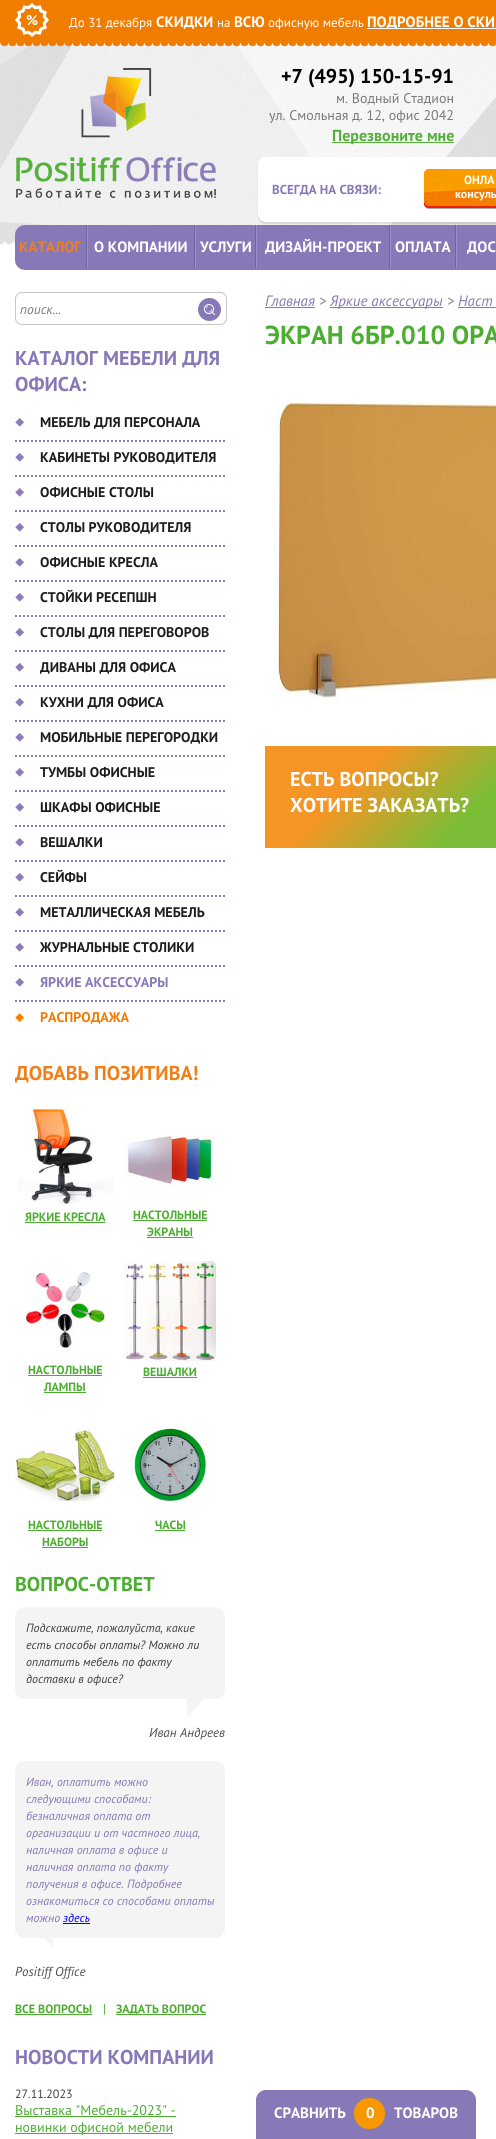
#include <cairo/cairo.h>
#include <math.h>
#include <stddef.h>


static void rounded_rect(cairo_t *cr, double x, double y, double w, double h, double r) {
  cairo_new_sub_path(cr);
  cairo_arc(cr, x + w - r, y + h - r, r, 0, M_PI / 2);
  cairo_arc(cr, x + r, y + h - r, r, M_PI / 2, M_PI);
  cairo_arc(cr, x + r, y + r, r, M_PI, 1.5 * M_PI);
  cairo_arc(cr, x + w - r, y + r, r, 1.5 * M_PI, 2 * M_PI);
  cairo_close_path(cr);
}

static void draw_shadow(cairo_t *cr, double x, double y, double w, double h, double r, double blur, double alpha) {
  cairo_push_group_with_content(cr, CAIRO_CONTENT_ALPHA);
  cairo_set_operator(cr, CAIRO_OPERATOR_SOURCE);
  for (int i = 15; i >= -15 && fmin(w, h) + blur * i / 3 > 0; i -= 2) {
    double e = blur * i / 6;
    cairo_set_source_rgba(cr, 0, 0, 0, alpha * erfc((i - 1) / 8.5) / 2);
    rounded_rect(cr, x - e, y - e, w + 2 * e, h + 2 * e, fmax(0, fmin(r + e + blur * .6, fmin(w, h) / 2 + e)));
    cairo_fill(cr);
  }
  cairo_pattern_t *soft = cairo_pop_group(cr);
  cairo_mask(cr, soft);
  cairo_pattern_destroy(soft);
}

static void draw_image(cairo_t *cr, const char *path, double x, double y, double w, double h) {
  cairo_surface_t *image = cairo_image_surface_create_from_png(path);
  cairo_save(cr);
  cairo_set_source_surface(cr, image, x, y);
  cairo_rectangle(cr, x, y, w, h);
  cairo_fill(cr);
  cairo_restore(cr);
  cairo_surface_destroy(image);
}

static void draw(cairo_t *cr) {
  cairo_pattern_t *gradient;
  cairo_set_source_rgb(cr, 1, 1, 1);
  cairo_paint(cr);
  draw_image(cr, "images/3.png", 0, 42, 496, 203);
  draw_image(cr, "images/1.png", 0, 0, 496, 47);
  draw_image(cr, "images/2.png", 15, 3, 34, 34);
  cairo_set_source_rgb(cr, 1, 1, 1);
  cairo_rectangle(cr, 367, 28, 129, 1);
  cairo_fill(cr);
  draw_image(cr, "images/4.png", 16, 68, 200, 130);
  cairo_set_source_rgb(cr, 84 / 255.0, 175 / 255.0, 58 / 255.0);
  cairo_rectangle(cr, 332, 142, 122, 1);
  cairo_fill(cr);
  cairo_set_source_rgb(cr, 0, 0, 0);
  draw_shadow(cr, 258, 159, 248, 65, 8, 0.5, 0.1);
  cairo_set_source_rgb(cr, 1, 1, 1);
  rounded_rect(cr, 258, 157, 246, 65, 8);
  cairo_fill(cr);
  draw_image(cr, "images/5.png", 424, 169, 72, 40);
  cairo_set_source_rgb(cr, 135 / 255.0, 121 / 255.0, 183 / 255.0);
  rounded_rect(cr, 15, 225, 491, 45, 10);
  cairo_fill(cr);
  cairo_set_source_rgb(cr, 113 / 255.0, 99 / 255.0, 161 / 255.0);
  cairo_rectangle(cr, 86, 225, 1, 43);
  cairo_fill(cr);
  cairo_rectangle(cr, 194, 225, 1, 43);
  cairo_fill(cr);
  cairo_set_source_rgb(cr, 157 / 255.0, 143 / 255.0, 205 / 255.0);
  cairo_rectangle(cr, 87, 225, 1, 43);
  cairo_fill(cr);
  cairo_set_source_rgb(cr, 113 / 255.0, 99 / 255.0, 161 / 255.0);
  cairo_rectangle(cr, 255, 225, 1, 43);
  cairo_fill(cr);
  cairo_set_source_rgb(cr, 157 / 255.0, 143 / 255.0, 205 / 255.0);
  cairo_rectangle(cr, 195, 225, 1, 43);
  cairo_fill(cr);
  cairo_set_source_rgb(cr, 113 / 255.0, 99 / 255.0, 161 / 255.0);
  cairo_rectangle(cr, 389, 225, 1, 43);
  cairo_fill(cr);
  cairo_set_source_rgb(cr, 157 / 255.0, 143 / 255.0, 205 / 255.0);
  cairo_rectangle(cr, 256, 225, 1, 43);
  cairo_fill(cr);
  cairo_set_source_rgb(cr, 113 / 255.0, 99 / 255.0, 161 / 255.0);
  cairo_rectangle(cr, 455, 225, 1, 43);
  cairo_fill(cr);
  cairo_set_source_rgb(cr, 157 / 255.0, 143 / 255.0, 205 / 255.0);
  cairo_rectangle(cr, 390, 225, 1, 43);
  cairo_fill(cr);
  cairo_rectangle(cr, 456, 225, 1, 43);
  cairo_fill(cr);
  rounded_rect(cr, 15.5, 292.5, 211, 32, 6.5);
  cairo_set_source_rgb(cr, 198 / 255.0, 198 / 255.0, 198 / 255.0);
  cairo_set_line_width(cr, 1);
  cairo_stroke(cr);
  draw_image(cr, "images/6.png", 198, 298, 23, 23);
  draw_image(cr, "images/7.png", 15, 418, 9, 9);
  cairo_new_path(cr);
  cairo_move_to(cr, 15, 441);
  cairo_line_to(cr, 225, 441);
  cairo_set_source_rgb(cr, 137 / 255.0, 124 / 255.0, 184 / 255.0);
  cairo_set_line_width(cr, 2);
  cairo_set_dash(cr, (double[]){2, 2}, 2, 0);
  cairo_stroke(cr);
  draw_image(cr, "images/7.png", 15, 453, 9, 9);
  cairo_new_path(cr);
  cairo_move_to(cr, 15, 476);
  cairo_line_to(cr, 225, 476);
  cairo_stroke(cr);
  draw_image(cr, "images/7.png", 15, 488, 9, 9);
  cairo_new_path(cr);
  cairo_move_to(cr, 15, 511);
  cairo_line_to(cr, 225, 511);
  cairo_stroke(cr);
  draw_image(cr, "images/7.png", 15, 523, 9, 9);
  cairo_new_path(cr);
  cairo_move_to(cr, 15, 546);
  cairo_line_to(cr, 225, 546);
  cairo_stroke(cr);
  draw_image(cr, "images/7.png", 15, 558, 9, 9);
  cairo_new_path(cr);
  cairo_move_to(cr, 15, 581);
  cairo_line_to(cr, 225, 581);
  cairo_stroke(cr);
  draw_image(cr, "images/7.png", 15, 593, 9, 9);
  cairo_new_path(cr);
  cairo_move_to(cr, 15, 616);
  cairo_line_to(cr, 225, 616);
  cairo_stroke(cr);
  draw_image(cr, "images/7.png", 15, 628, 9, 9);
  cairo_new_path(cr);
  cairo_move_to(cr, 15, 651);
  cairo_line_to(cr, 225, 651);
  cairo_stroke(cr);
  draw_image(cr, "images/7.png", 15, 663, 9, 9);
  cairo_new_path(cr);
  cairo_move_to(cr, 15, 686);
  cairo_line_to(cr, 225, 686);
  cairo_stroke(cr);
  draw_image(cr, "images/7.png", 15, 698, 9, 9);
  cairo_new_path(cr);
  cairo_move_to(cr, 15, 721);
  cairo_line_to(cr, 225, 721);
  cairo_stroke(cr);
  draw_image(cr, "images/7.png", 15, 733, 9, 9);
  cairo_new_path(cr);
  cairo_move_to(cr, 15, 756);
  cairo_line_to(cr, 225, 756);
  cairo_stroke(cr);
  draw_image(cr, "images/7.png", 15, 768, 9, 9);
  cairo_new_path(cr);
  cairo_move_to(cr, 15, 791);
  cairo_line_to(cr, 225, 791);
  cairo_stroke(cr);
  draw_image(cr, "images/7.png", 15, 803, 9, 9);
  cairo_new_path(cr);
  cairo_move_to(cr, 15, 826);
  cairo_line_to(cr, 225, 826);
  cairo_stroke(cr);
  draw_image(cr, "images/7.png", 15, 838, 9, 9);
  cairo_new_path(cr);
  cairo_move_to(cr, 15, 861);
  cairo_line_to(cr, 225, 861);
  cairo_stroke(cr);
  draw_image(cr, "images/7.png", 15, 873, 9, 9);
  cairo_new_path(cr);
  cairo_move_to(cr, 15, 896);
  cairo_line_to(cr, 225, 896);
  cairo_stroke(cr);
  draw_image(cr, "images/7.png", 15, 908, 9, 9);
  cairo_new_path(cr);
  cairo_move_to(cr, 15, 931);
  cairo_line_to(cr, 225, 931);
  cairo_stroke(cr);
  draw_image(cr, "images/7.png", 15, 943, 9, 9);
  cairo_new_path(cr);
  cairo_move_to(cr, 15, 966);
  cairo_line_to(cr, 225, 966);
  cairo_stroke(cr);
  draw_image(cr, "images/7.png", 15, 978, 9, 9);
  cairo_new_path(cr);
  cairo_move_to(cr, 15, 1001);
  cairo_line_to(cr, 225, 1001);
  cairo_stroke(cr);
  draw_image(cr, "images/8.png", 15, 1013, 9, 9);
  draw_image(cr, "images/9.png", 17, 1106, 97, 100);
  cairo_set_source_rgb(cr, 76 / 255.0, 174 / 255.0, 48 / 255.0);
  cairo_rectangle(cr, 25, 1222, 80, 1);
  cairo_fill(cr);
  draw_image(cr, "images/10.png", 125, 1135, 91, 52);
  cairo_rectangle(cr, 133, 1220, 74, 1);
  cairo_fill(cr);
  cairo_rectangle(cr, 147, 1237, 46, 1);
  cairo_fill(cr);
  draw_image(cr, "images/11.png", 25, 1272, 81, 76);
  cairo_rectangle(cr, 28, 1375, 74, 1);
  cairo_fill(cr);
  cairo_rectangle(cr, 44, 1392, 42, 1);
  cairo_fill(cr);
  draw_image(cr, "images/12.png", 124, 1261, 92, 100);
  cairo_rectangle(cr, 143, 1377, 54, 1);
  cairo_fill(cr);
  draw_image(cr, "images/13.png", 15, 1429, 100, 72);
  cairo_rectangle(cr, 28, 1530, 74, 1);
  cairo_fill(cr);
  cairo_rectangle(cr, 42, 1547, 46, 1);
  cairo_fill(cr);
  draw_image(cr, "images/14.png", 131, 1427, 79, 75);
  cairo_rectangle(cr, 155, 1530, 30, 1);
  cairo_fill(cr);
  draw_image(cr, "images/15.png", 187, 1699, 18, 18);
  cairo_set_source_rgb(cr, 244 / 255.0, 244 / 255.0, 244 / 255.0);
  rounded_rect(cr, 15, 1607, 210, 92, 10);
  cairo_fill(cr);
  draw_image(cr, "images/16.png", 44, 1938, 9, 9);
  rounded_rect(cr, 15, 1761, 210, 177, 10);
  cairo_fill(cr);
  cairo_set_source_rgb(cr, 0, 0, 238 / 255.0);
  cairo_rectangle(cr, 63, 1923, 27, 1);
  cairo_fill(cr);
  cairo_set_source_rgb(cr, 76 / 255.0, 174 / 255.0, 48 / 255.0);
  cairo_rectangle(cr, 15, 2014, 77, 1);
  cairo_fill(cr);
  cairo_rectangle(cr, 116, 2014, 90, 1);
  cairo_fill(cr);
  cairo_rectangle(cr, 15, 2116, 161, 1);
  cairo_fill(cr);
  cairo_rectangle(cr, 15, 2133, 158, 1);
  cairo_fill(cr);
  cairo_set_source_rgb(cr, 135 / 255.0, 121 / 255.0, 183 / 255.0);
  cairo_rectangle(cr, 265, 307, 50, 1);
  cairo_fill(cr);
  cairo_rectangle(cr, 330, 307, 113, 1);
  cairo_fill(cr);
  cairo_rectangle(cr, 458, 307, 38, 1);
  cairo_fill(cr);
  draw_image(cr, "images/17.png", 274, 399, 222, 305);
  gradient = cairo_pattern_create_linear(420, 592, 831, 1003);
  cairo_pattern_add_color_stop_rgba(gradient, 0.15, 245 / 255.0, 149 / 255.0, 37 / 255.0, 1);
  cairo_pattern_add_color_stop_rgba(gradient, 0.33, 123 / 255.0, 190 / 255.0, 54 / 255.0, 1);
  cairo_pattern_add_color_stop_rgba(gradient, 0.74, 116 / 255.0, 175 / 255.0, 88 / 255.0, 1);
  cairo_pattern_add_color_stop_rgba(gradient, 0.85, 128 / 255.0, 126 / 255.0, 158 / 255.0, 1);
  cairo_set_source(cr, gradient);
  cairo_pattern_destroy(gradient);
  cairo_rectangle(cr, 265, 746, 231, 102);
  cairo_fill(cr);
  cairo_set_source_rgb(cr, 135 / 255.0, 121 / 255.0, 183 / 255.0);
  cairo_new_path(cr);
  cairo_move_to(cr, 266, 2090);
  cairo_line_to(cr, 466, 2090);
  cairo_curve_to(cr, 471.5, 2090, 476, 2094.5, 476, 2100);
  cairo_line_to(cr, 476, 2139);
  cairo_line_to(cr, 256, 2139);
  cairo_line_to(cr, 256, 2100);
  cairo_curve_to(cr, 256, 2094.5, 260.5, 2090, 266, 2090);
  cairo_close_path(cr);
  cairo_fill(cr);
  cairo_set_source_rgb(cr, 247 / 255.0, 152 / 255.0, 0);
  rounded_rect(cr, 354, 2098, 31, 31, 15);
  cairo_fill(cr);
  cairo_select_font_face(cr, "PT Sans", CAIRO_FONT_SLANT_NORMAL, CAIRO_FONT_WEIGHT_NORMAL);
  cairo_set_font_size(cr, 13);
  cairo_set_source_rgb(cr, 1, 1, 1);
  cairo_move_to(cr, 69, 27);
  cairo_show_text(cr, "До 31 декабря");
  cairo_select_font_face(cr, "PT Sans", CAIRO_FONT_SLANT_NORMAL, CAIRO_FONT_WEIGHT_BOLD);
  cairo_set_font_size(cr, 15);
  cairo_move_to(cr, 156, 27);
  cairo_show_text(cr, "СКИДКИ");
  cairo_select_font_face(cr, "PT Sans", CAIRO_FONT_SLANT_NORMAL, CAIRO_FONT_WEIGHT_NORMAL);
  cairo_set_font_size(cr, 13);
  cairo_move_to(cr, 217, 27);
  cairo_show_text(cr, "на");
  cairo_select_font_face(cr, "PT Sans", CAIRO_FONT_SLANT_NORMAL, CAIRO_FONT_WEIGHT_BOLD);
  cairo_set_font_size(cr, 15);
  cairo_move_to(cr, 234, 27);
  cairo_show_text(cr, "ВСЮ");
  cairo_select_font_face(cr, "PT Sans", CAIRO_FONT_SLANT_NORMAL, CAIRO_FONT_WEIGHT_NORMAL);
  cairo_set_font_size(cr, 13);
  cairo_move_to(cr, 268, 27);
  cairo_show_text(cr, "офисную мебель");
  cairo_select_font_face(cr, "PT Sans", CAIRO_FONT_SLANT_NORMAL, CAIRO_FONT_WEIGHT_BOLD);
  cairo_set_font_size(cr, 15);
  cairo_move_to(cr, 367, 27);
  cairo_show_text(cr, "ПОДРОБНЕЕ О СКИ");
  cairo_set_font_size(cr, 20);
  cairo_set_source_rgb(cr, 0, 0, 0);
  cairo_move_to(cr, 281, 83);
  cairo_show_text(cr, "+7 (495) 150-15-91");
  cairo_select_font_face(cr, "PT Sans", CAIRO_FONT_SLANT_NORMAL, CAIRO_FONT_WEIGHT_NORMAL);
  cairo_set_font_size(cr, 14);
  cairo_set_source_rgb(cr, 122 / 255.0, 122 / 255.0, 122 / 255.0);
  cairo_move_to(cr, 336, 103);
  cairo_show_text(cr, "м. Водный Стадион");
  cairo_move_to(cr, 269, 120);
  cairo_show_text(cr, "ул. Смольная д. 12, офис 2042");
  cairo_select_font_face(cr, "PT Sans", CAIRO_FONT_SLANT_NORMAL, CAIRO_FONT_WEIGHT_BOLD);
  cairo_set_font_size(cr, 16);
  cairo_set_source_rgb(cr, 84 / 255.0, 175 / 255.0, 58 / 255.0);
  cairo_move_to(cr, 332, 141);
  cairo_show_text(cr, "Перезвоните мне");
  cairo_set_font_size(cr, 13);
  cairo_set_source_rgb(cr, 135 / 255.0, 121 / 255.0, 183 / 255.0);
  cairo_move_to(cr, 272, 194);
  cairo_show_text(cr, "ВСЕГДА НА СВЯЗИ:");
  cairo_set_font_size(cr, 12);
  cairo_set_source_rgb(cr, 1, 1, 1);
  cairo_move_to(cr, 464, 184);
  cairo_show_text(cr, "ОНЛА");
  cairo_move_to(cr, 455, 198);
  cairo_show_text(cr, "консуль");
  cairo_set_font_size(cr, 15);
  cairo_set_source_rgb(cr, 239 / 255.0, 127 / 255.0, 26 / 255.0);
  cairo_move_to(cr, 19, 252);
  cairo_show_text(cr, "КАТАЛОГ");
  cairo_set_source_rgb(cr, 1, 1, 1);
  cairo_move_to(cr, 94, 252);
  cairo_show_text(cr, "О КОМПАНИИ");
  cairo_move_to(cr, 200, 252);
  cairo_show_text(cr, "УСЛУГИ");
  cairo_move_to(cr, 265, 252);
  cairo_show_text(cr, "ДИЗАЙН-ПРОЕКТ");
  cairo_move_to(cr, 395, 252);
  cairo_show_text(cr, "ОПЛАТА");
  cairo_move_to(cr, 467, 252);
  cairo_show_text(cr, "ДОС");
  cairo_select_font_face(cr, "PT Sans", CAIRO_FONT_SLANT_ITALIC, CAIRO_FONT_WEIGHT_NORMAL);
  cairo_set_font_size(cr, 13.5);
  cairo_set_source_rgb(cr, 122 / 255.0, 122 / 255.0, 122 / 255.0);
  cairo_move_to(cr, 20, 314);
  cairo_show_text(cr, "поиск...");
  cairo_select_font_face(cr, "PT Sans", CAIRO_FONT_SLANT_NORMAL, CAIRO_FONT_WEIGHT_BOLD);
  cairo_set_font_size(cr, 20);
  cairo_set_source_rgb(cr, 135 / 255.0, 121 / 255.0, 183 / 255.0);
  cairo_move_to(cr, 15, 365);
  cairo_show_text(cr, "КАТАЛОГ МЕБЕЛИ ДЛЯ");
  cairo_move_to(cr, 15, 391);
  cairo_show_text(cr, "ОФИСА:");
  cairo_set_font_size(cr, 14);
  cairo_set_source_rgb(cr, 29 / 255.0, 29 / 255.0, 29 / 255.0);
  cairo_move_to(cr, 40, 427);
  cairo_show_text(cr, "МЕБЕЛЬ ДЛЯ ПЕРСОНАЛА");
  cairo_move_to(cr, 40, 462);
  cairo_show_text(cr, "КАБИНЕТЫ РУКОВОДИТЕЛЯ");
  cairo_move_to(cr, 40, 497);
  cairo_show_text(cr, "ОФИСНЫЕ СТОЛЫ");
  cairo_move_to(cr, 40, 532);
  cairo_show_text(cr, "СТОЛЫ РУКОВОДИТЕЛЯ");
  cairo_move_to(cr, 40, 567);
  cairo_show_text(cr, "ОФИСНЫЕ КРЕСЛА");
  cairo_move_to(cr, 40, 602);
  cairo_show_text(cr, "СТОЙКИ РЕСЕПШН");
  cairo_move_to(cr, 40, 637);
  cairo_show_text(cr, "СТОЛЫ ДЛЯ ПЕРЕГОВОРОВ");
  cairo_move_to(cr, 40, 672);
  cairo_show_text(cr, "ДИВАНЫ ДЛЯ ОФИСА");
  cairo_move_to(cr, 40, 707);
  cairo_show_text(cr, "КУХНИ ДЛЯ ОФИСА");
  cairo_move_to(cr, 40, 742);
  cairo_show_text(cr, "МОБИЛЬНЫЕ ПЕРЕГОРОДКИ");
  cairo_move_to(cr, 40, 777);
  cairo_show_text(cr, "ТУМБЫ ОФИСНЫЕ");
  cairo_move_to(cr, 40, 812);
  cairo_show_text(cr, "ШКАФЫ ОФИСНЫЕ");
  cairo_move_to(cr, 40, 847);
  cairo_show_text(cr, "ВЕШАЛКИ");
  cairo_move_to(cr, 40, 882);
  cairo_show_text(cr, "СЕЙФЫ");
  cairo_move_to(cr, 40, 917);
  cairo_show_text(cr, "МЕТАЛЛИЧЕСКАЯ МЕБЕЛЬ");
  cairo_move_to(cr, 40, 952);
  cairo_show_text(cr, "ЖУРНАЛЬНЫЕ СТОЛИКИ");
  cairo_set_source_rgb(cr, 135 / 255.0, 121 / 255.0, 183 / 255.0);
  cairo_move_to(cr, 40, 987);
  cairo_show_text(cr, "ЯРКИЕ АКСЕССУАРЫ");
  cairo_set_source_rgb(cr, 240 / 255.0, 124 / 255.0, 0);
  cairo_move_to(cr, 40, 1022);
  cairo_show_text(cr, "РАСПРОДАЖА");
  cairo_set_font_size(cr, 20);
  cairo_set_source_rgb(cr, 239 / 255.0, 127 / 255.0, 26 / 255.0);
  cairo_move_to(cr, 15, 1080);
  cairo_show_text(cr, "ДОБАВЬ ПОЗИТИВА!");
  cairo_set_font_size(cr, 12);
  cairo_set_source_rgb(cr, 76 / 255.0, 174 / 255.0, 48 / 255.0);
  cairo_move_to(cr, 25, 1221);
  cairo_show_text(cr, "ЯРКИЕ КРЕСЛА");
  cairo_move_to(cr, 133, 1219);
  cairo_show_text(cr, "НАСТОЛЬНЫЕ");
  cairo_move_to(cr, 147, 1236);
  cairo_show_text(cr, "ЭКРАНЫ");
  cairo_move_to(cr, 28, 1374);
  cairo_show_text(cr, "НАСТОЛЬНЫЕ");
  cairo_move_to(cr, 44, 1391);
  cairo_show_text(cr, "ЛАМПЫ");
  cairo_move_to(cr, 143, 1376);
  cairo_show_text(cr, "ВЕШАЛКИ");
  cairo_move_to(cr, 28, 1529);
  cairo_show_text(cr, "НАСТОЛЬНЫЕ");
  cairo_move_to(cr, 42, 1546);
  cairo_show_text(cr, "НАБОРЫ");
  cairo_move_to(cr, 155, 1529);
  cairo_show_text(cr, "ЧАСЫ");
  cairo_set_font_size(cr, 20);
  cairo_move_to(cr, 15, 1591);
  cairo_show_text(cr, "ВОПРОС-ОТВЕТ");
  cairo_select_font_face(cr, "PT Sans", CAIRO_FONT_SLANT_ITALIC, CAIRO_FONT_WEIGHT_NORMAL);
  cairo_set_font_size(cr, 12);
  cairo_set_source_rgb(cr, 63 / 255.0, 63 / 255.0, 63 / 255.0);
  cairo_move_to(cr, 26, 1632);
  cairo_show_text(cr, "Подскажите, пожалуйста, какие");
  cairo_move_to(cr, 26, 1649);
  cairo_show_text(cr, "есть способы оплаты? Можно ли");
  cairo_move_to(cr, 26, 1666);
  cairo_show_text(cr, "оплатить мебель по факту");
  cairo_move_to(cr, 26, 1683);
  cairo_show_text(cr, "доставки в офисе?");
  cairo_set_font_size(cr, 13);
  cairo_set_source_rgb(cr, 79 / 255.0, 79 / 255.0, 79 / 255.0);
  cairo_move_to(cr, 149, 1737);
  cairo_show_text(cr, "Иван Андреев");
  cairo_set_font_size(cr, 12);
  cairo_set_source_rgb(cr, 135 / 255.0, 121 / 255.0, 183 / 255.0);
  cairo_move_to(cr, 26, 1786);
  cairo_show_text(cr, "Иван, оплатить можно");
  cairo_move_to(cr, 26, 1803);
  cairo_show_text(cr, "следующими способами:");
  cairo_move_to(cr, 26, 1820);
  cairo_show_text(cr, "безналичная оплата от");
  cairo_move_to(cr, 26, 1837);
  cairo_show_text(cr, "организации и от частного лица,");
  cairo_move_to(cr, 26, 1854);
  cairo_show_text(cr, "наличная оплата в офисе и");
  cairo_move_to(cr, 26, 1871);
  cairo_show_text(cr, "наличная оплата по факту");
  cairo_move_to(cr, 26, 1888);
  cairo_show_text(cr, "получения в офисе. Подробнее");
  cairo_move_to(cr, 26, 1905);
  cairo_show_text(cr, "ознакомиться со способами оплаты");
  cairo_move_to(cr, 26, 1922);
  cairo_show_text(cr, "можно");
  cairo_set_source_rgb(cr, 0, 0, 238 / 255.0);
  cairo_move_to(cr, 63, 1922);
  cairo_show_text(cr, "здесь");
  cairo_set_font_size(cr, 13);
  cairo_set_source_rgb(cr, 79 / 255.0, 79 / 255.0, 79 / 255.0);
  cairo_move_to(cr, 15, 1976);
  cairo_show_text(cr, "Positiff Office");
  cairo_select_font_face(cr, "PT Sans", CAIRO_FONT_SLANT_NORMAL, CAIRO_FONT_WEIGHT_BOLD);
  cairo_set_font_size(cr, 12);
  cairo_set_source_rgb(cr, 76 / 255.0, 174 / 255.0, 48 / 255.0);
  cairo_move_to(cr, 15, 2013);
  cairo_show_text(cr, "ВСЕ ВОПРОСЫ");
  cairo_select_font_face(cr, "PT Sans", CAIRO_FONT_SLANT_NORMAL, CAIRO_FONT_WEIGHT_NORMAL);
  cairo_set_font_size(cr, 13);
  cairo_move_to(cr, 103, 2013);
  cairo_show_text(cr, "|");
  cairo_select_font_face(cr, "PT Sans", CAIRO_FONT_SLANT_NORMAL, CAIRO_FONT_WEIGHT_BOLD);
  cairo_set_font_size(cr, 12);
  cairo_move_to(cr, 116, 2013);
  cairo_show_text(cr, "ЗАДАТЬ ВОПРОС");
  cairo_set_font_size(cr, 20);
  cairo_set_source_rgb(cr, 135 / 255.0, 121 / 255.0, 183 / 255.0);
  cairo_move_to(cr, 15, 2064);
  cairo_show_text(cr, "НОВОСТИ КОМПАНИИ");
  cairo_select_font_face(cr, "PT Sans", CAIRO_FONT_SLANT_NORMAL, CAIRO_FONT_WEIGHT_NORMAL);
  cairo_set_font_size(cr, 12);
  cairo_set_source_rgb(cr, 63 / 255.0, 63 / 255.0, 63 / 255.0);
  cairo_move_to(cr, 15, 2098);
  cairo_show_text(cr, "27.11.2023");
  cairo_set_font_size(cr, 14);
  cairo_set_source_rgb(cr, 76 / 255.0, 174 / 255.0, 48 / 255.0);
  cairo_move_to(cr, 15, 2115);
  cairo_show_text(cr, "Выставка \"Мебель-2023\" -");
  cairo_move_to(cr, 15, 2132);
  cairo_show_text(cr, "новинки офисной мебели");
  cairo_select_font_face(cr, "PT Sans", CAIRO_FONT_SLANT_ITALIC, CAIRO_FONT_WEIGHT_NORMAL);
  cairo_set_font_size(cr, 15);
  cairo_set_source_rgb(cr, 135 / 255.0, 121 / 255.0, 183 / 255.0);
  cairo_move_to(cr, 265, 306);
  cairo_show_text(cr, "Главная");
  cairo_set_source_rgb(cr, 135 / 255.0, 135 / 255.0, 135 / 255.0);
  cairo_move_to(cr, 319, 306);
  cairo_show_text(cr, ">");
  cairo_set_source_rgb(cr, 135 / 255.0, 121 / 255.0, 183 / 255.0);
  cairo_move_to(cr, 330, 306);
  cairo_show_text(cr, "Яркие аксессуары");
  cairo_set_source_rgb(cr, 135 / 255.0, 135 / 255.0, 135 / 255.0);
  cairo_move_to(cr, 447, 306);
  cairo_show_text(cr, ">");
  cairo_set_source_rgb(cr, 135 / 255.0, 121 / 255.0, 183 / 255.0);
  cairo_move_to(cr, 458, 306);
  cairo_show_text(cr, "Наст");
  cairo_select_font_face(cr, "PT Sans", CAIRO_FONT_SLANT_NORMAL, CAIRO_FONT_WEIGHT_BOLD);
  cairo_set_font_size(cr, 26);
  cairo_set_source_rgb(cr, 76 / 255.0, 174 / 255.0, 48 / 255.0);
  cairo_move_to(cr, 265, 344);
  cairo_show_text(cr, "ЭКРАН 6БР.010 ОРА");
  cairo_set_font_size(cr, 20);
  cairo_set_source_rgb(cr, 1, 1, 1);
  cairo_move_to(cr, 290, 786);
  cairo_show_text(cr, "ЕСТЬ ВОПРОСЫ?");
  cairo_move_to(cr, 290, 812);
  cairo_show_text(cr, "ХОТИТЕ ЗАКАЗАТЬ?");
  cairo_set_font_size(cr, 15);
  cairo_move_to(cr, 274, 2118);
  cairo_show_text(cr, "СРАВНИТЬ");
  cairo_move_to(cr, 366, 2118);
  cairo_show_text(cr, "0");
  cairo_move_to(cr, 394, 2118);
  cairo_show_text(cr, "ТОВАРОВ");
}

int main(void) {
  cairo_surface_t *surface = cairo_image_surface_create(CAIRO_FORMAT_RGB24, 496, 2139);
  cairo_t *cr = cairo_create(surface);
  cairo_font_options_t *options = cairo_font_options_create();
  cairo_font_options_set_hint_metrics(options, CAIRO_HINT_METRICS_OFF);
  cairo_font_options_set_hint_style(options, CAIRO_HINT_STYLE_NONE);
  cairo_set_font_options(cr, options);
  cairo_set_miter_limit(cr, 4);
  draw(cr);
  cairo_surface_write_to_png(surface, "out.png");
  cairo_font_options_destroy(options);
  cairo_destroy(cr);
  cairo_surface_destroy(surface);
  return 0;
}
